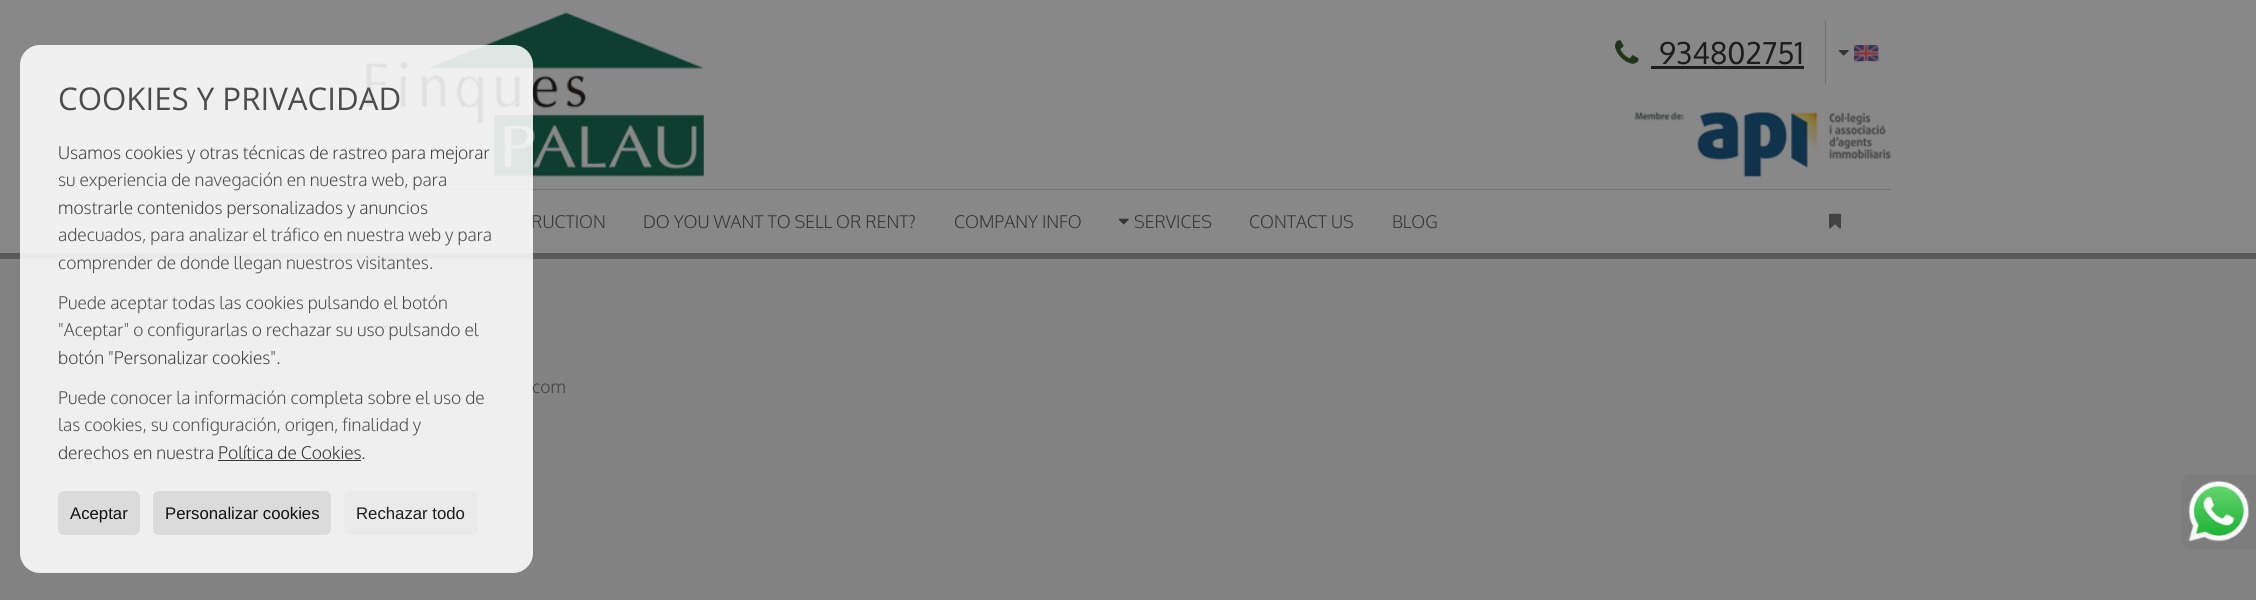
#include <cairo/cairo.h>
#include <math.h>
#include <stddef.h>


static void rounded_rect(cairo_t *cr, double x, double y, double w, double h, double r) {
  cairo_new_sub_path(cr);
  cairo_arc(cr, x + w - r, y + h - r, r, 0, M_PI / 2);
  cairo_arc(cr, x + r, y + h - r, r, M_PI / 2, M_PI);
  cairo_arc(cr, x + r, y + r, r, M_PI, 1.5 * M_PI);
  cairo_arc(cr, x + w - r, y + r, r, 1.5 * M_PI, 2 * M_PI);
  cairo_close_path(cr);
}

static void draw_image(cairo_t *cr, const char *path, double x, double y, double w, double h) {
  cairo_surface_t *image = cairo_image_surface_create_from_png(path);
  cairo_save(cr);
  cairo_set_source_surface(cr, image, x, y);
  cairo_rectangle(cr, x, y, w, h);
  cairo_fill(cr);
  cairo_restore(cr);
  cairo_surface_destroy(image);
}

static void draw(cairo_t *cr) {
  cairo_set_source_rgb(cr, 130 / 255.0, 130 / 255.0, 130 / 255.0);
  cairo_paint(cr);
  cairo_set_source_rgb(cr, 136 / 255.0, 136 / 255.0, 136 / 255.0);
  cairo_rectangle(cr, 0, 0, 2256, 253);
  cairo_fill(cr);
  cairo_set_source_rgb(cr, 90 / 255.0, 90 / 255.0, 90 / 255.0);
  cairo_rectangle(cr, 0, 253, 2256, 6);
  cairo_fill(cr);
  draw_image(cr, "images/1.png", 366, 12, 338, 165);
  draw_image(cr, "images/2.png", 1615, 40, 24, 24);
  cairo_set_source_rgb(cr, 29 / 255.0, 29 / 255.0, 29 / 255.0);
  cairo_rectangle(cr, 1651, 66, 153, 3);
  cairo_fill(cr);
  draw_image(cr, "images/3.png", 1634, 112, 258, 66);
  cairo_set_source_rgb(cr, 111 / 255.0, 111 / 255.0, 111 / 255.0);
  cairo_rectangle(cr, 366, 189, 1525, 1);
  cairo_fill(cr);
  cairo_rectangle(cr, 1825, 21, 1, 63);
  cairo_fill(cr);
  draw_image(cr, "images/4.png", 1838, 50, 11, 6);
  draw_image(cr, "images/5.png", 1853, 45, 26, 17);
  draw_image(cr, "images/6.png", 1118, 218, 11, 7);
  draw_image(cr, "images/7.png", 1829, 213, 12, 16);
  cairo_set_source_rgb(cr, 9 / 255.0, 9 / 255.0, 9 / 255.0);
  cairo_rectangle(cr, 366, 326, 63, 1);
  cairo_fill(cr);
  cairo_set_source_rgb(cr, 125 / 255.0, 125 / 255.0, 125 / 255.0);
  cairo_new_path(cr);
  cairo_move_to(cr, 2191, 474);
  cairo_line_to(cr, 2256, 474);
  cairo_line_to(cr, 2256, 549);
  cairo_line_to(cr, 2191, 549);
  cairo_curve_to(cr, 2185.5, 549, 2181, 544.5, 2181, 539);
  cairo_line_to(cr, 2181, 484);
  cairo_curve_to(cr, 2181, 478.5, 2185.5, 474, 2191, 474);
  cairo_close_path(cr);
  cairo_fill(cr);
  draw_image(cr, "images/8.png", 2188, 480, 62, 62);
  cairo_select_font_face(cr, "Oxygen", CAIRO_FONT_SLANT_NORMAL, CAIRO_FONT_WEIGHT_NORMAL);
  cairo_set_font_size(cr, 30);
  cairo_set_source_rgb(cr, 29 / 255.0, 29 / 255.0, 29 / 255.0);
  cairo_move_to(cr, 1659, 64);
  cairo_show_text(cr, "934802751");
  cairo_select_font_face(cr, "Oxygen Light", CAIRO_FONT_SLANT_NORMAL, CAIRO_FONT_WEIGHT_NORMAL);
  cairo_set_font_size(cr, 17.5);
  cairo_set_source_rgb(cr, 52 / 255.0, 52 / 255.0, 52 / 255.0);
  cairo_move_to(cr, 531, 228);
  cairo_show_text(cr, "RUCTION");
  cairo_set_source_rgba(cr, 1, 1, 1, 0.87);
  rounded_rect(cr, 20, 45, 513, 528, 20);
  cairo_fill(cr);
  cairo_select_font_face(cr, "Open Sans", CAIRO_FONT_SLANT_NORMAL, CAIRO_FONT_WEIGHT_NORMAL);
  cairo_set_font_size(cr, 31.25);
  cairo_set_source_rgb(cr, 76 / 255.0, 76 / 255.0, 76 / 255.0);
  cairo_move_to(cr, 58, 110);
  cairo_show_text(cr, "COOKIES Y PRIVACIDAD");
  cairo_set_source_rgba(cr, 233 / 255.0, 233 / 255.0, 233 / 255.0, 0.87);
  rounded_rect(cr, 344, 491, 134, 44, 6);
  cairo_fill(cr);
  cairo_select_font_face(cr, "Liberation Sans", CAIRO_FONT_SLANT_NORMAL, CAIRO_FONT_WEIGHT_NORMAL);
  cairo_set_font_size(cr, 16.75);
  cairo_set_source_rgb(cr, 29 / 255.0, 29 / 255.0, 29 / 255.0);
  cairo_move_to(cr, 356, 519);
  cairo_show_text(cr, "Rechazar todo");
  cairo_set_source_rgb(cr, 219 / 255.0, 219 / 255.0, 219 / 255.0);
  rounded_rect(cr, 153, 491, 178, 44, 6);
  cairo_fill(cr);
  cairo_set_source_rgb(cr, 17 / 255.0, 17 / 255.0, 17 / 255.0);
  cairo_move_to(cr, 165, 519);
  cairo_show_text(cr, "Personalizar cookies");
  cairo_set_source_rgb(cr, 219 / 255.0, 219 / 255.0, 219 / 255.0);
  rounded_rect(cr, 58, 491, 82, 44, 6);
  cairo_fill(cr);
  cairo_set_source_rgb(cr, 17 / 255.0, 17 / 255.0, 17 / 255.0);
  cairo_move_to(cr, 70, 519);
  cairo_show_text(cr, "Aceptar");
  cairo_select_font_face(cr, "Oxygen Light", CAIRO_FONT_SLANT_NORMAL, CAIRO_FONT_WEIGHT_NORMAL);
  cairo_set_font_size(cr, 17.5);
  cairo_set_source_rgb(cr, 66 / 255.0, 66 / 255.0, 66 / 255.0);
  cairo_move_to(cr, 361, 459);
  cairo_show_text(cr, ".");
  cairo_set_source_rgb(cr, 52 / 255.0, 52 / 255.0, 52 / 255.0);
  cairo_move_to(cr, 218, 459);
  cairo_show_text(cr, "Política de Cookies");
  cairo_set_source_rgb(cr, 53 / 255.0, 53 / 255.0, 53 / 255.0);
  cairo_rectangle(cr, 218, 460, 143, 1);
  cairo_fill(cr);
  cairo_set_source_rgb(cr, 66 / 255.0, 66 / 255.0, 66 / 255.0);
  cairo_move_to(cr, 58, 459);
  cairo_show_text(cr, "derechos en nuestra");
  cairo_set_source_rgb(cr, 76 / 255.0, 76 / 255.0, 76 / 255.0);
  cairo_move_to(cr, 58, 431);
  cairo_show_text(cr, "las cookies, su configuración, origen, finalidad y");
  cairo_move_to(cr, 58, 404);
  cairo_show_text(cr, "Puede conocer la información completa sobre el uso de");
  cairo_set_source_rgb(cr, 66 / 255.0, 66 / 255.0, 66 / 255.0);
  cairo_move_to(cr, 58, 364);
  cairo_show_text(cr, "botón \"Personalizar cookies\".");
  cairo_set_source_rgb(cr, 76 / 255.0, 76 / 255.0, 76 / 255.0);
  cairo_move_to(cr, 58, 336);
  cairo_show_text(cr, "\"Aceptar\" o configurarlas o rechazar su uso pulsando el");
  cairo_move_to(cr, 58, 309);
  cairo_show_text(cr, "Puede aceptar todas las cookies pulsando el botón");
  cairo_move_to(cr, 58, 269);
  cairo_show_text(cr, "comprender de donde llegan nuestros visitantes.");
  cairo_move_to(cr, 58, 241);
  cairo_show_text(cr, "adecuados, para analizar el tráfico en nuestra web y para");
  cairo_set_source_rgb(cr, 66 / 255.0, 66 / 255.0, 66 / 255.0);
  cairo_move_to(cr, 58, 214);
  cairo_show_text(cr, "mostrarle contenidos personalizados y anuncios");
  cairo_set_source_rgb(cr, 76 / 255.0, 76 / 255.0, 76 / 255.0);
  cairo_move_to(cr, 58, 186);
  cairo_show_text(cr, "su experiencia de navegación en nuestra web, para");
  cairo_set_source_rgb(cr, 66 / 255.0, 66 / 255.0, 66 / 255.0);
  cairo_move_to(cr, 58, 159);
  cairo_show_text(cr, "Usamos cookies y otras técnicas de rastreo para mejorar");
  cairo_set_source_rgb(cr, 52 / 255.0, 52 / 255.0, 52 / 255.0);
  cairo_move_to(cr, 643, 228);
  cairo_show_text(cr, "DO YOU WANT TO SELL OR RENT?");
  cairo_move_to(cr, 954, 228);
  cairo_show_text(cr, "COMPANY INFO");
  cairo_move_to(cr, 1134, 228);
  cairo_show_text(cr, "SERVICES");
  cairo_move_to(cr, 1249, 228);
  cairo_show_text(cr, "CONTACT US");
  cairo_move_to(cr, 1392, 228);
  cairo_show_text(cr, "BLOG");
  cairo_set_source_rgb(cr, 66 / 255.0, 66 / 255.0, 66 / 255.0);
  cairo_move_to(cr, 532, 393);
  cairo_show_text(cr, "com");
}

int main(void) {
  cairo_surface_t *surface = cairo_image_surface_create(CAIRO_FORMAT_RGB24, 2256, 600);
  cairo_t *cr = cairo_create(surface);
  cairo_font_options_t *options = cairo_font_options_create();
  cairo_font_options_set_hint_metrics(options, CAIRO_HINT_METRICS_OFF);
  cairo_font_options_set_hint_style(options, CAIRO_HINT_STYLE_NONE);
  cairo_set_font_options(cr, options);
  cairo_set_miter_limit(cr, 4);
  draw(cr);
  cairo_surface_write_to_png(surface, "out.png");
  cairo_font_options_destroy(options);
  cairo_destroy(cr);
  cairo_surface_destroy(surface);
  return 0;
}
